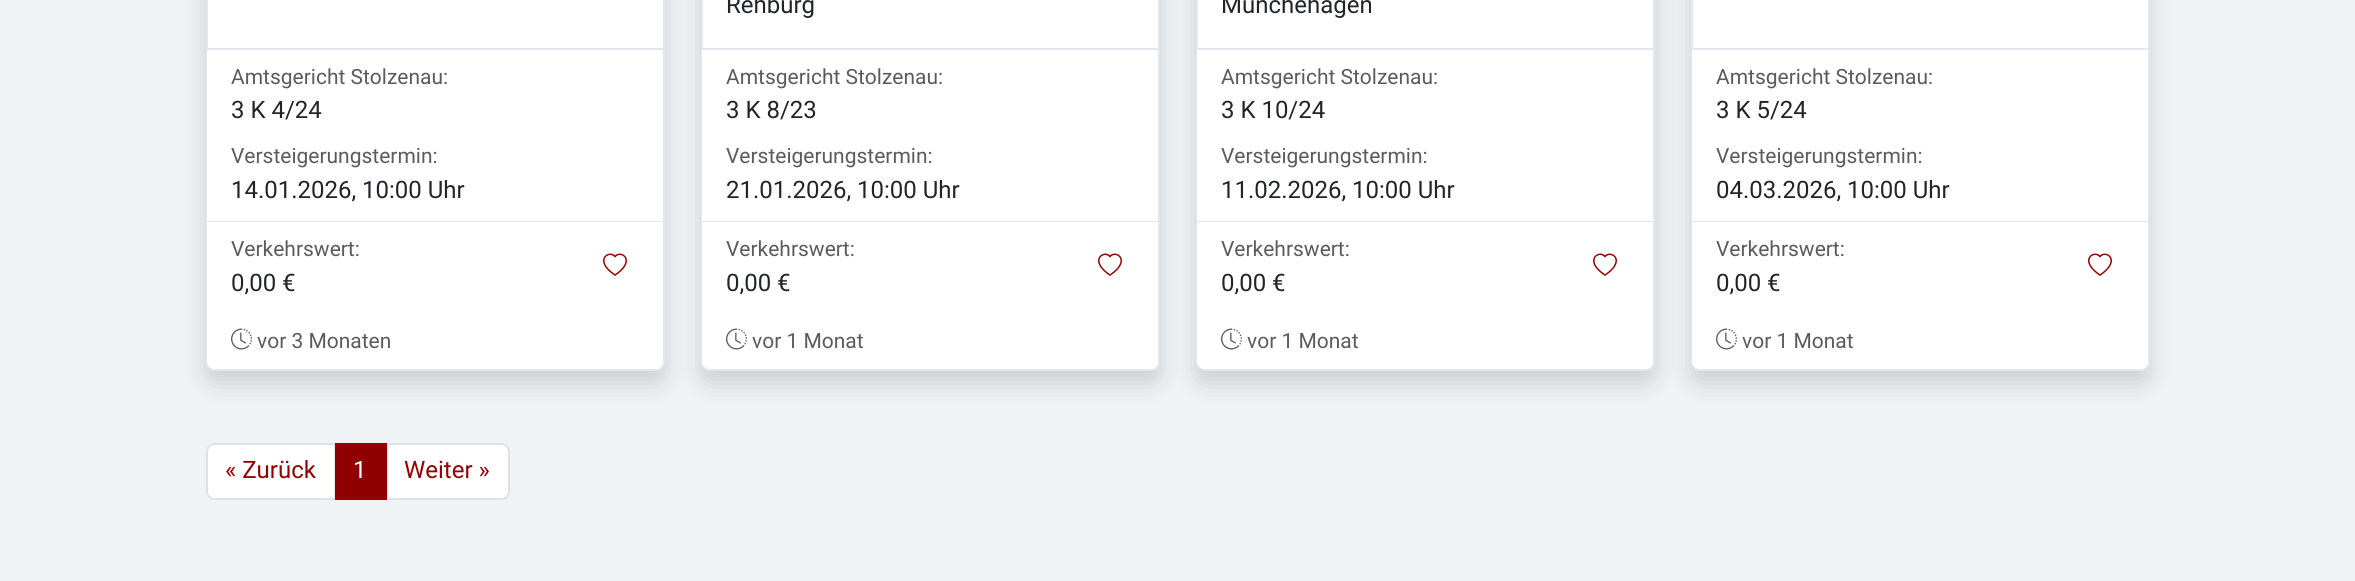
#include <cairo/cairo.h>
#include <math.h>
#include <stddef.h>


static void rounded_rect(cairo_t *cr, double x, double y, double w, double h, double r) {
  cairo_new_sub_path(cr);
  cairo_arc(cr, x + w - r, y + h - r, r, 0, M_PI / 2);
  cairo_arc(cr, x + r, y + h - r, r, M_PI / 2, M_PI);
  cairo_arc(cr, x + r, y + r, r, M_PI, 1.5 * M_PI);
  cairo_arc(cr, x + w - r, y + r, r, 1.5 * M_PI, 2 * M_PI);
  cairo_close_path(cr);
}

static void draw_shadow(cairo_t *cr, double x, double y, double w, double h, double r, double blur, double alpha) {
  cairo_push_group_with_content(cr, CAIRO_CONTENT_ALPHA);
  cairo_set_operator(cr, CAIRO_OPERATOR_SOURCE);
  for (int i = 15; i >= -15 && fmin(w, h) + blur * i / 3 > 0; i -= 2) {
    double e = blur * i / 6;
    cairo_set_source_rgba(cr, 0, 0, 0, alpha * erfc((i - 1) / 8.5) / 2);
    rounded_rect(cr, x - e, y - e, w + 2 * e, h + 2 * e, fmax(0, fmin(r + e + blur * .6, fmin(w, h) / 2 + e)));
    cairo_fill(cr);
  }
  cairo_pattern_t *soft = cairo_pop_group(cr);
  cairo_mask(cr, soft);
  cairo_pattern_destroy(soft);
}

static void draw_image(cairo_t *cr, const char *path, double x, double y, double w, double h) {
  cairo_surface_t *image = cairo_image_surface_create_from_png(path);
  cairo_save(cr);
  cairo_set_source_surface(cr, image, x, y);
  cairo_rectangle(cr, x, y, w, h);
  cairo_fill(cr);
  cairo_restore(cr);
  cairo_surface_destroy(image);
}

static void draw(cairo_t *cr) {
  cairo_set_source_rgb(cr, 240 / 255.0, 243 / 255.0, 246 / 255.0);
  cairo_paint(cr);
  cairo_set_source_rgb(cr, 0, 0, 0);
  draw_shadow(cr, 206, -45, 459, 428, 9, 12, 0.15);
  cairo_set_source_rgb(cr, 1, 1, 1);
  rounded_rect(cr, 207, -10, 457, 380, 8);
  cairo_fill_preserve(cr);
  cairo_set_source_rgb(cr, 227 / 255.0, 230 / 255.0, 240 / 255.0);
  cairo_stroke(cr);
  cairo_rectangle(cr, 207, 48, 456, 2);
  cairo_fill(cr);
  cairo_rectangle(cr, 207, 221, 456, 1);
  cairo_fill(cr);
  cairo_set_source_rgb(cr, 1, 1, 1);
  cairo_rectangle(cr, 207, 50, 1, 171);
  cairo_fill(cr);
  cairo_new_path(cr);
  cairo_move_to(cr, 207, 222);
  cairo_line_to(cr, 663, 222);
  cairo_line_to(cr, 663, 361);
  cairo_curve_to(cr, 663, 365.5, 659.5, 369, 655, 369);
  cairo_line_to(cr, 215, 369);
  cairo_curve_to(cr, 210.5, 369, 207, 365.5, 207, 361);
  cairo_close_path(cr);
  cairo_fill(cr);
  draw_image(cr, "images/1.png", 603, 253, 24, 23);
  draw_image(cr, "images/2.png", 231, 328, 21, 22);
  cairo_set_source_rgb(cr, 0, 0, 0);
  draw_shadow(cr, 701, -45, 459, 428, 9, 12, 0.15);
  cairo_set_source_rgb(cr, 1, 1, 1);
  rounded_rect(cr, 702, -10, 457, 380, 8);
  cairo_fill_preserve(cr);
  cairo_set_source_rgb(cr, 227 / 255.0, 230 / 255.0, 240 / 255.0);
  cairo_stroke(cr);
  cairo_rectangle(cr, 702, 48, 456, 2);
  cairo_fill(cr);
  cairo_rectangle(cr, 702, 221, 456, 1);
  cairo_fill(cr);
  cairo_set_source_rgb(cr, 1, 1, 1);
  cairo_rectangle(cr, 702, 50, 1, 171);
  cairo_fill(cr);
  cairo_new_path(cr);
  cairo_move_to(cr, 702, 222);
  cairo_line_to(cr, 1158, 222);
  cairo_line_to(cr, 1158, 361);
  cairo_curve_to(cr, 1158, 365.5, 1154.5, 369, 1150, 369);
  cairo_line_to(cr, 710, 369);
  cairo_curve_to(cr, 705.5, 369, 702, 365.5, 702, 361);
  cairo_close_path(cr);
  cairo_fill(cr);
  draw_image(cr, "images/1.png", 1098, 253, 24, 23);
  draw_image(cr, "images/2.png", 726, 328, 21, 22);
  cairo_set_source_rgb(cr, 0, 0, 0);
  draw_shadow(cr, 1196, -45, 459, 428, 9, 12, 0.15);
  cairo_set_source_rgb(cr, 1, 1, 1);
  rounded_rect(cr, 1197, -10, 457, 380, 8);
  cairo_fill_preserve(cr);
  cairo_set_source_rgb(cr, 227 / 255.0, 230 / 255.0, 240 / 255.0);
  cairo_stroke(cr);
  cairo_rectangle(cr, 1197, 48, 456, 2);
  cairo_fill(cr);
  cairo_rectangle(cr, 1197, 221, 456, 1);
  cairo_fill(cr);
  cairo_set_source_rgb(cr, 1, 1, 1);
  cairo_rectangle(cr, 1197, 50, 1, 171);
  cairo_fill(cr);
  cairo_new_path(cr);
  cairo_move_to(cr, 1197, 222);
  cairo_line_to(cr, 1653, 222);
  cairo_line_to(cr, 1653, 361);
  cairo_curve_to(cr, 1653, 365.5, 1649.5, 369, 1645, 369);
  cairo_line_to(cr, 1205, 369);
  cairo_curve_to(cr, 1200.5, 369, 1197, 365.5, 1197, 361);
  cairo_close_path(cr);
  cairo_fill(cr);
  draw_image(cr, "images/1.png", 1593, 253, 24, 23);
  draw_image(cr, "images/2.png", 1221, 328, 21, 22);
  cairo_set_source_rgb(cr, 0, 0, 0);
  draw_shadow(cr, 1691, -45, 459, 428, 9, 12, 0.15);
  cairo_set_source_rgb(cr, 1, 1, 1);
  rounded_rect(cr, 1692, -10, 457, 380, 8);
  cairo_fill_preserve(cr);
  cairo_set_source_rgb(cr, 227 / 255.0, 230 / 255.0, 240 / 255.0);
  cairo_stroke(cr);
  cairo_rectangle(cr, 1692, 48, 456, 2);
  cairo_fill(cr);
  cairo_rectangle(cr, 1692, 221, 456, 1);
  cairo_fill(cr);
  cairo_set_source_rgb(cr, 1, 1, 1);
  cairo_rectangle(cr, 1692, 50, 1, 171);
  cairo_fill(cr);
  cairo_new_path(cr);
  cairo_move_to(cr, 1692, 222);
  cairo_line_to(cr, 2148, 222);
  cairo_line_to(cr, 2148, 361);
  cairo_curve_to(cr, 2148, 365.5, 2144.5, 369, 2140, 369);
  cairo_line_to(cr, 1700, 369);
  cairo_curve_to(cr, 1695.5, 369, 1692, 365.5, 1692, 361);
  cairo_close_path(cr);
  cairo_fill(cr);
  draw_image(cr, "images/1.png", 2088, 253, 24, 23);
  draw_image(cr, "images/2.png", 1716, 328, 21, 22);
  cairo_new_path(cr);
  cairo_move_to(cr, 215, 444);
  cairo_line_to(cr, 335, 444);
  cairo_line_to(cr, 335, 499);
  cairo_line_to(cr, 215, 499);
  cairo_curve_to(cr, 210.5, 499, 207, 495.5, 207, 491);
  cairo_line_to(cr, 207, 452);
  cairo_curve_to(cr, 207, 447.5, 210.5, 444, 215, 444);
  cairo_close_path(cr);
  cairo_fill_preserve(cr);
  cairo_set_source_rgb(cr, 222 / 255.0, 226 / 255.0, 230 / 255.0);
  cairo_stroke(cr);
  cairo_set_source_rgb(cr, 1, 1, 1);
  cairo_new_path(cr);
  cairo_move_to(cr, 387, 444);
  cairo_line_to(cr, 501, 444);
  cairo_curve_to(cr, 505.5, 444, 509, 447.5, 509, 452);
  cairo_line_to(cr, 509, 491);
  cairo_curve_to(cr, 509, 495.5, 505.5, 499, 501, 499);
  cairo_line_to(cr, 387, 499);
  cairo_close_path(cr);
  cairo_fill_preserve(cr);
  cairo_set_source_rgb(cr, 222 / 255.0, 226 / 255.0, 230 / 255.0);
  cairo_stroke(cr);
  cairo_set_source_rgb(cr, 145 / 255.0, 0, 0);
  cairo_rectangle(cr, 335, 443, 52, 57);
  cairo_fill(cr);
  cairo_select_font_face(cr, "Roboto", CAIRO_FONT_SLANT_NORMAL, CAIRO_FONT_WEIGHT_NORMAL);
  cairo_set_font_size(cr, 21);
  cairo_set_source_rgb(cr, 89 / 255.0, 92 / 255.0, 95 / 255.0);
  cairo_move_to(cr, 231, 84);
  cairo_show_text(cr, "Amtsgericht Stolzenau:");
  cairo_set_font_size(cr, 24);
  cairo_set_source_rgb(cr, 33 / 255.0, 37 / 255.0, 41 / 255.0);
  cairo_move_to(cr, 231, 118);
  cairo_show_text(cr, "3 K 4/24");
  cairo_set_font_size(cr, 21);
  cairo_set_source_rgb(cr, 89 / 255.0, 92 / 255.0, 95 / 255.0);
  cairo_move_to(cr, 231, 163);
  cairo_show_text(cr, "Versteigerungstermin:");
  cairo_set_font_size(cr, 24);
  cairo_set_source_rgb(cr, 33 / 255.0, 37 / 255.0, 41 / 255.0);
  cairo_move_to(cr, 231, 198);
  cairo_show_text(cr, "14.01.2026, 10:00 Uhr");
  cairo_set_font_size(cr, 21);
  cairo_set_source_rgb(cr, 89 / 255.0, 92 / 255.0, 95 / 255.0);
  cairo_move_to(cr, 231, 256);
  cairo_show_text(cr, "Verkehrswert:");
  cairo_set_font_size(cr, 24);
  cairo_set_source_rgb(cr, 33 / 255.0, 37 / 255.0, 41 / 255.0);
  cairo_move_to(cr, 231, 291);
  cairo_show_text(cr, "0,00 €");
  cairo_set_font_size(cr, 21);
  cairo_set_source_rgb(cr, 89 / 255.0, 92 / 255.0, 95 / 255.0);
  cairo_move_to(cr, 257, 348);
  cairo_show_text(cr, "vor 3 Monaten");
  cairo_set_font_size(cr, 24);
  cairo_set_source_rgb(cr, 33 / 255.0, 37 / 255.0, 41 / 255.0);
  cairo_move_to(cr, 726, 13);
  cairo_show_text(cr, "Rehburg");
  cairo_set_font_size(cr, 21);
  cairo_set_source_rgb(cr, 89 / 255.0, 92 / 255.0, 95 / 255.0);
  cairo_move_to(cr, 726, 84);
  cairo_show_text(cr, "Amtsgericht Stolzenau:");
  cairo_set_font_size(cr, 24);
  cairo_set_source_rgb(cr, 33 / 255.0, 37 / 255.0, 41 / 255.0);
  cairo_move_to(cr, 726, 118);
  cairo_show_text(cr, "3 K 8/23");
  cairo_set_font_size(cr, 21);
  cairo_set_source_rgb(cr, 89 / 255.0, 92 / 255.0, 95 / 255.0);
  cairo_move_to(cr, 726, 163);
  cairo_show_text(cr, "Versteigerungstermin:");
  cairo_set_font_size(cr, 24);
  cairo_set_source_rgb(cr, 33 / 255.0, 37 / 255.0, 41 / 255.0);
  cairo_move_to(cr, 726, 198);
  cairo_show_text(cr, "21.01.2026, 10:00 Uhr");
  cairo_set_font_size(cr, 21);
  cairo_set_source_rgb(cr, 89 / 255.0, 92 / 255.0, 95 / 255.0);
  cairo_move_to(cr, 726, 256);
  cairo_show_text(cr, "Verkehrswert:");
  cairo_set_font_size(cr, 24);
  cairo_set_source_rgb(cr, 33 / 255.0, 37 / 255.0, 41 / 255.0);
  cairo_move_to(cr, 726, 291);
  cairo_show_text(cr, "0,00 €");
  cairo_set_font_size(cr, 21);
  cairo_set_source_rgb(cr, 89 / 255.0, 92 / 255.0, 95 / 255.0);
  cairo_move_to(cr, 752, 348);
  cairo_show_text(cr, "vor 1 Monat");
  cairo_set_font_size(cr, 24);
  cairo_set_source_rgb(cr, 33 / 255.0, 37 / 255.0, 41 / 255.0);
  cairo_move_to(cr, 1221, 13);
  cairo_show_text(cr, "Münchehagen");
  cairo_set_font_size(cr, 21);
  cairo_set_source_rgb(cr, 89 / 255.0, 92 / 255.0, 95 / 255.0);
  cairo_move_to(cr, 1221, 84);
  cairo_show_text(cr, "Amtsgericht Stolzenau:");
  cairo_set_font_size(cr, 24);
  cairo_set_source_rgb(cr, 33 / 255.0, 37 / 255.0, 41 / 255.0);
  cairo_move_to(cr, 1221, 118);
  cairo_show_text(cr, "3 K 10/24");
  cairo_set_font_size(cr, 21);
  cairo_set_source_rgb(cr, 89 / 255.0, 92 / 255.0, 95 / 255.0);
  cairo_move_to(cr, 1221, 163);
  cairo_show_text(cr, "Versteigerungstermin:");
  cairo_set_font_size(cr, 24);
  cairo_set_source_rgb(cr, 33 / 255.0, 37 / 255.0, 41 / 255.0);
  cairo_move_to(cr, 1221, 198);
  cairo_show_text(cr, "11.02.2026, 10:00 Uhr");
  cairo_set_font_size(cr, 21);
  cairo_set_source_rgb(cr, 89 / 255.0, 92 / 255.0, 95 / 255.0);
  cairo_move_to(cr, 1221, 256);
  cairo_show_text(cr, "Verkehrswert:");
  cairo_set_font_size(cr, 24);
  cairo_set_source_rgb(cr, 33 / 255.0, 37 / 255.0, 41 / 255.0);
  cairo_move_to(cr, 1221, 291);
  cairo_show_text(cr, "0,00 €");
  cairo_set_font_size(cr, 21);
  cairo_set_source_rgb(cr, 89 / 255.0, 92 / 255.0, 95 / 255.0);
  cairo_move_to(cr, 1247, 348);
  cairo_show_text(cr, "vor 1 Monat");
  cairo_move_to(cr, 1716, 84);
  cairo_show_text(cr, "Amtsgericht Stolzenau:");
  cairo_set_font_size(cr, 24);
  cairo_set_source_rgb(cr, 33 / 255.0, 37 / 255.0, 41 / 255.0);
  cairo_move_to(cr, 1716, 118);
  cairo_show_text(cr, "3 K 5/24");
  cairo_set_font_size(cr, 21);
  cairo_set_source_rgb(cr, 89 / 255.0, 92 / 255.0, 95 / 255.0);
  cairo_move_to(cr, 1716, 163);
  cairo_show_text(cr, "Versteigerungstermin:");
  cairo_set_font_size(cr, 24);
  cairo_set_source_rgb(cr, 33 / 255.0, 37 / 255.0, 41 / 255.0);
  cairo_move_to(cr, 1716, 198);
  cairo_show_text(cr, "04.03.2026, 10:00 Uhr");
  cairo_set_font_size(cr, 21);
  cairo_set_source_rgb(cr, 89 / 255.0, 92 / 255.0, 95 / 255.0);
  cairo_move_to(cr, 1716, 256);
  cairo_show_text(cr, "Verkehrswert:");
  cairo_set_font_size(cr, 24);
  cairo_set_source_rgb(cr, 33 / 255.0, 37 / 255.0, 41 / 255.0);
  cairo_move_to(cr, 1716, 291);
  cairo_show_text(cr, "0,00 €");
  cairo_set_font_size(cr, 21);
  cairo_set_source_rgb(cr, 89 / 255.0, 92 / 255.0, 95 / 255.0);
  cairo_move_to(cr, 1742, 348);
  cairo_show_text(cr, "vor 1 Monat");
  cairo_set_font_size(cr, 24);
  cairo_set_source_rgb(cr, 145 / 255.0, 0, 0);
  cairo_move_to(cr, 225, 478);
  cairo_show_text(cr, "« Zurück");
  cairo_set_source_rgb(cr, 1, 1, 1);
  cairo_move_to(cr, 353, 478);
  cairo_show_text(cr, "1");
  cairo_set_source_rgb(cr, 145 / 255.0, 0, 0);
  cairo_move_to(cr, 404, 478);
  cairo_show_text(cr, "Weiter »");
}

int main(void) {
  cairo_surface_t *surface = cairo_image_surface_create(CAIRO_FORMAT_RGB24, 2355, 581);
  cairo_t *cr = cairo_create(surface);
  cairo_font_options_t *options = cairo_font_options_create();
  cairo_font_options_set_hint_metrics(options, CAIRO_HINT_METRICS_OFF);
  cairo_font_options_set_hint_style(options, CAIRO_HINT_STYLE_NONE);
  cairo_set_font_options(cr, options);
  cairo_set_miter_limit(cr, 4);
  draw(cr);
  cairo_surface_write_to_png(surface, "out.png");
  cairo_font_options_destroy(options);
  cairo_destroy(cr);
  cairo_surface_destroy(surface);
  return 0;
}
